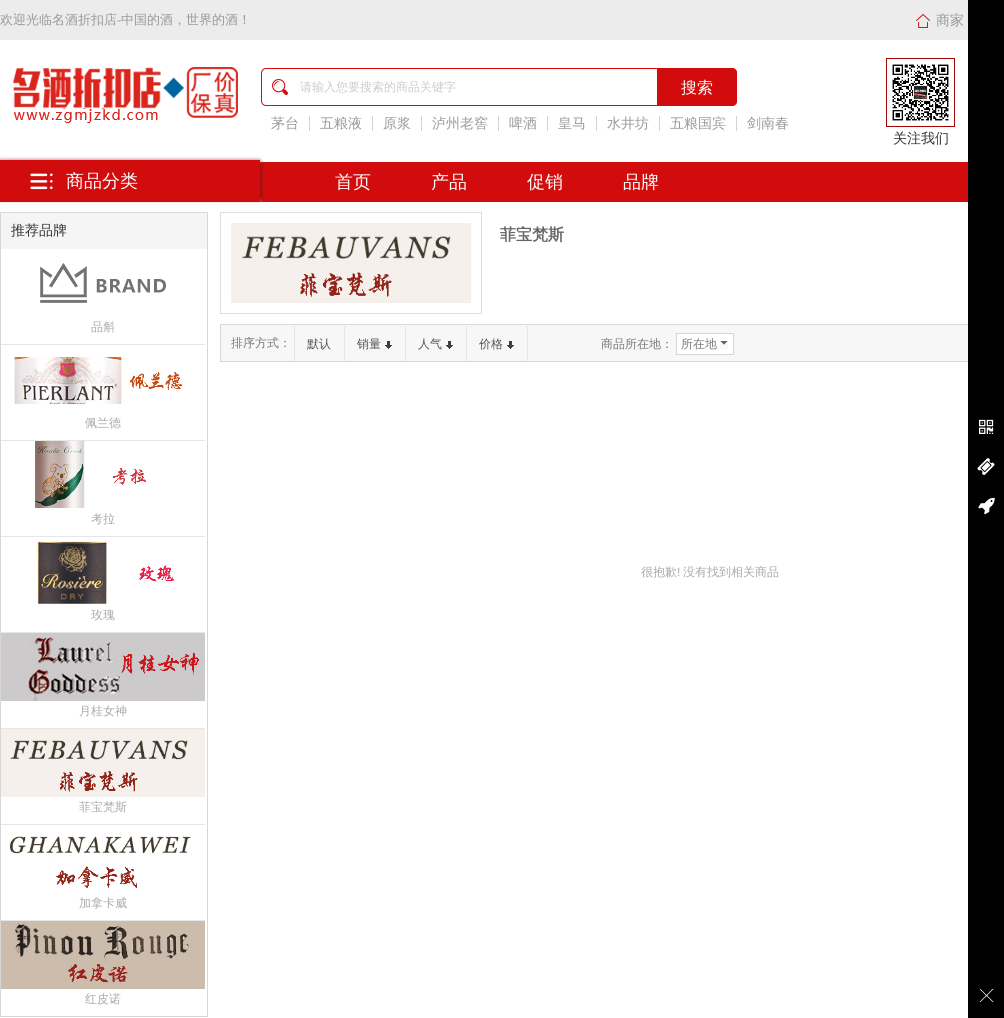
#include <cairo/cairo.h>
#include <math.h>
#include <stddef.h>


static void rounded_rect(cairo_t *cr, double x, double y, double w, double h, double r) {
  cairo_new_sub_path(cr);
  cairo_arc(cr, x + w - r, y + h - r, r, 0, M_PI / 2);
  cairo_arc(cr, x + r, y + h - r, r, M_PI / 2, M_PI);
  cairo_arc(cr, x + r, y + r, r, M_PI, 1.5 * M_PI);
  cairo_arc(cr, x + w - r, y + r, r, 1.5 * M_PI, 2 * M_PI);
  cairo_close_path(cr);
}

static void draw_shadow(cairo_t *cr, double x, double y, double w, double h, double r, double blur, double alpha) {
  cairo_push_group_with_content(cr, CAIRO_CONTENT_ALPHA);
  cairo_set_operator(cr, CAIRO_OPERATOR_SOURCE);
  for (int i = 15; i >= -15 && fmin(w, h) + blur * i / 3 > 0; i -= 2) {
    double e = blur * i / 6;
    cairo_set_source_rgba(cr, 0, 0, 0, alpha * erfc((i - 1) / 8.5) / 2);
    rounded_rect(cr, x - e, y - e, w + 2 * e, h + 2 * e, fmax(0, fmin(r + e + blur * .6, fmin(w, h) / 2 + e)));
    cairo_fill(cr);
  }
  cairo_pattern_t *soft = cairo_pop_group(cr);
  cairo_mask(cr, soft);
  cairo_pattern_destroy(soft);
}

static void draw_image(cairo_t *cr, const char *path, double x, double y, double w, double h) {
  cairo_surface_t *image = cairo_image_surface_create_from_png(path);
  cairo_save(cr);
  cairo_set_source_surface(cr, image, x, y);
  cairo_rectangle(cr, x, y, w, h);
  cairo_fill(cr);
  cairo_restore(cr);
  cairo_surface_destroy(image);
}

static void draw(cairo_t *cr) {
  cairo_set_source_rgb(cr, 1, 1, 1);
  cairo_paint(cr);
  cairo_set_source_rgb(cr, 236 / 255.0, 236 / 255.0, 236 / 255.0);
  cairo_rectangle(cr, 0, 0, 968, 40);
  cairo_fill(cr);
  draw_image(cr, "images/1.png", 916, 14, 14, 14);
  draw_image(cr, "images/2.png", 12, 67, 226, 56);
  rounded_rect(cr, 261.5, 68.5, 475, 37, 4.5);
  cairo_set_source_rgb(cr, 210 / 255.0, 12 / 255.0, 13 / 255.0);
  cairo_set_line_width(cr, 1);
  cairo_stroke(cr);
  draw_image(cr, "images/3.png", 272, 79, 16, 16);
  cairo_new_path(cr);
  cairo_move_to(cr, 657.5, 68.5);
  cairo_line_to(cr, 732, 68.5);
  cairo_curve_to(cr, 734.5, 68.5, 736.5, 70.5, 736.5, 73);
  cairo_line_to(cr, 736.5, 101);
  cairo_curve_to(cr, 736.5, 103.5, 734.5, 105.5, 732, 105.5);
  cairo_line_to(cr, 657.5, 105.5);
  cairo_close_path(cr);
  cairo_fill_preserve(cr);
  cairo_stroke(cr);
  cairo_set_source_rgb(cr, 211 / 255.0, 211 / 255.0, 211 / 255.0);
  cairo_rectangle(cr, 309, 116, 1, 15);
  cairo_fill(cr);
  cairo_rectangle(cr, 372, 116, 1, 15);
  cairo_fill(cr);
  cairo_rectangle(cr, 421, 116, 1, 15);
  cairo_fill(cr);
  cairo_rectangle(cr, 498, 116, 1, 15);
  cairo_fill(cr);
  cairo_rectangle(cr, 547, 116, 1, 15);
  cairo_fill(cr);
  cairo_rectangle(cr, 596, 116, 1, 15);
  cairo_fill(cr);
  cairo_rectangle(cr, 659, 116, 1, 15);
  cairo_fill(cr);
  cairo_rectangle(cr, 736, 116, 1, 15);
  cairo_fill(cr);
  cairo_rectangle(cr, 886.5, 58.5, 68, 68);
  cairo_set_source_rgb(cr, 163 / 255.0, 5 / 255.0, 6 / 255.0);
  cairo_stroke(cr);
  draw_image(cr, "images/4.png", 892, 64, 57, 57);
  cairo_set_source_rgb(cr, 210 / 255.0, 12 / 255.0, 13 / 255.0);
  cairo_rectangle(cr, 260, 162, 708, 40);
  cairo_fill(cr);
  cairo_set_source_rgb(cr, 201 / 255.0, 162 / 255.0, 162 / 255.0);
  draw_shadow(cr, 0, 159, 260, 42, 0, 1.5, 1);
  cairo_set_source_rgb(cr, 157 / 255.0, 4 / 255.0, 4 / 255.0);
  draw_shadow(cr, 8, 163, 254, 36, 0, 1.5, 1);
  cairo_set_source_rgb(cr, 210 / 255.0, 12 / 255.0, 13 / 255.0);
  cairo_rectangle(cr, 0, 160, 260, 42);
  cairo_fill(cr);
  draw_image(cr, "images/5.png", 30, 173, 23, 17);
  cairo_set_source_rgb(cr, 247 / 255.0, 247 / 255.0, 247 / 255.0);
  cairo_rectangle(cr, 221, 325, 747, 36);
  cairo_fill(cr);
  cairo_rectangle(cr, 220.5, 324.5, 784, 37);
  cairo_set_source_rgb(cr, 215 / 255.0, 215 / 255.0, 215 / 255.0);
  cairo_stroke(cr);
  cairo_set_source_rgb(cr, 0, 0, 0);
  cairo_rectangle(cr, 968, 0, 36, 1018);
  cairo_fill(cr);
  draw_image(cr, "images/6.png", 979, 419, 15, 15);
  draw_image(cr, "images/7.png", 977, 458, 18, 17);
  draw_image(cr, "images/8.png", 978, 497, 17, 18);
  draw_image(cr, "images/9.png", 979, 989, 15, 13);
  cairo_rectangle(cr, 0.5, 212.5, 207, 804);
  cairo_set_source_rgb(cr, 215 / 255.0, 215 / 255.0, 215 / 255.0);
  cairo_stroke(cr);
  cairo_set_source_rgb(cr, 245 / 255.0, 245 / 255.0, 245 / 255.0);
  cairo_rectangle(cr, 1, 213, 206, 36);
  cairo_fill(cr);
  draw_image(cr, "images/10.png", 40, 263, 126, 40);
  cairo_set_source_rgb(cr, 230 / 255.0, 230 / 255.0, 230 / 255.0);
  cairo_rectangle(cr, 1, 344, 204, 1);
  cairo_fill(cr);
  draw_image(cr, "images/11.png", 14, 357, 168, 48);
  cairo_rectangle(cr, 1, 440, 204, 1);
  cairo_fill(cr);
  draw_image(cr, "images/12.png", 35, 441, 111, 67);
  cairo_rectangle(cr, 1, 536, 204, 1);
  cairo_fill(cr);
  draw_image(cr, "images/13.png", 37, 541, 137, 63);
  cairo_rectangle(cr, 1, 632, 204, 1);
  cairo_fill(cr);
  draw_image(cr, "images/14.png", 1, 633, 204, 68);
  cairo_rectangle(cr, 1, 728, 204, 1);
  cairo_fill(cr);
  draw_image(cr, "images/15.png", 1, 729, 204, 68);
  cairo_rectangle(cr, 1, 824, 204, 1);
  cairo_fill(cr);
  draw_image(cr, "images/16.png", 10, 836, 181, 53);
  cairo_rectangle(cr, 1, 920, 204, 1);
  cairo_fill(cr);
  draw_image(cr, "images/17.png", 1, 921, 204, 68);
  cairo_rectangle(cr, 220.5, 212.5, 261, 101);
  cairo_set_source_rgb(cr, 221 / 255.0, 221 / 255.0, 221 / 255.0);
  cairo_stroke(cr);
  draw_image(cr, "images/18.png", 231, 223, 240, 80);
  cairo_set_source_rgb(cr, 230 / 255.0, 230 / 255.0, 230 / 255.0);
  cairo_rectangle(cr, 527, 326, 1, 35);
  cairo_fill(cr);
  cairo_rectangle(cr, 294, 326, 1, 35);
  cairo_fill(cr);
  cairo_rectangle(cr, 344, 326, 1, 35);
  cairo_fill(cr);
  draw_image(cr, "images/19.png", 385, 341, 7, 8);
  cairo_rectangle(cr, 405, 326, 1, 35);
  cairo_fill(cr);
  draw_image(cr, "images/19.png", 446, 341, 7, 8);
  cairo_rectangle(cr, 466, 326, 1, 35);
  cairo_fill(cr);
  draw_image(cr, "images/19.png", 507, 341, 7, 8);
  cairo_set_source_rgb(cr, 1, 1, 1);
  cairo_rectangle(cr, 676.5, 333.5, 57, 21);
  cairo_fill_preserve(cr);
  cairo_set_source_rgb(cr, 214 / 255.0, 214 / 255.0, 214 / 255.0);
  cairo_stroke(cr);
  cairo_set_source_rgb(cr, 102 / 255.0, 102 / 255.0, 102 / 255.0);
  cairo_new_path(cr);
  cairo_move_to(cr, 720, 341);
  cairo_line_to(cr, 728, 341);
  cairo_line_to(cr, 724, 345);
  cairo_close_path(cr);
  cairo_fill(cr);
  cairo_set_source_rgb(cr, 247 / 255.0, 247 / 255.0, 247 / 255.0);
  cairo_new_path(cr);
  cairo_move_to(cr, 728, 341);
  cairo_line_to(cr, 728, 349);
  cairo_line_to(cr, 724, 345);
  cairo_close_path(cr);
  cairo_fill(cr);
  cairo_rectangle(cr, 720, 345, 8, 4);
  cairo_fill(cr);
  cairo_new_path(cr);
  cairo_move_to(cr, 720, 349);
  cairo_line_to(cr, 720, 341);
  cairo_line_to(cr, 724, 345);
  cairo_close_path(cr);
  cairo_fill(cr);
  cairo_select_font_face(cr, "WenQuanYi Zen Hei Medium", CAIRO_FONT_SLANT_NORMAL, CAIRO_FONT_WEIGHT_NORMAL);
  cairo_set_font_size(cr, 13);
  cairo_set_source_rgb(cr, 153 / 255.0, 153 / 255.0, 153 / 255.0);
  cairo_move_to(cr, 0, 24);
  cairo_show_text(cr, "欢迎光临名酒折扣店");
  cairo_select_font_face(cr, "Liberation Serif", CAIRO_FONT_SLANT_NORMAL, CAIRO_FONT_WEIGHT_NORMAL);
  cairo_move_to(cr, 117, 24);
  cairo_show_text(cr, "-");
  cairo_select_font_face(cr, "WenQuanYi Zen Hei Medium", CAIRO_FONT_SLANT_NORMAL, CAIRO_FONT_WEIGHT_NORMAL);
  cairo_move_to(cr, 121, 24);
  cairo_show_text(cr, "中国的酒，世界的酒！");
  cairo_set_font_size(cr, 14);
  cairo_move_to(cr, 936, 25);
  cairo_show_text(cr, "商家");
  cairo_set_font_size(cr, 12);
  cairo_set_source_rgb(cr, 204 / 255.0, 204 / 255.0, 204 / 255.0);
  cairo_move_to(cr, 300, 91);
  cairo_show_text(cr, "请输入您要搜索的商品关键字");
  cairo_set_font_size(cr, 16);
  cairo_set_source_rgb(cr, 1, 1, 1);
  cairo_move_to(cr, 681, 93);
  cairo_show_text(cr, "搜索");
  cairo_set_font_size(cr, 14);
  cairo_set_source_rgb(cr, 153 / 255.0, 153 / 255.0, 153 / 255.0);
  cairo_move_to(cr, 271, 128);
  cairo_show_text(cr, "茅台");
  cairo_move_to(cr, 320, 128);
  cairo_show_text(cr, "五粮液");
  cairo_move_to(cr, 383, 128);
  cairo_show_text(cr, "原浆");
  cairo_move_to(cr, 432, 128);
  cairo_show_text(cr, "泸州老窖");
  cairo_move_to(cr, 509, 128);
  cairo_show_text(cr, "啤酒");
  cairo_move_to(cr, 558, 128);
  cairo_show_text(cr, "皇马");
  cairo_move_to(cr, 607, 128);
  cairo_show_text(cr, "水井坊");
  cairo_move_to(cr, 670, 128);
  cairo_show_text(cr, "五粮国宾");
  cairo_move_to(cr, 747, 128);
  cairo_show_text(cr, "剑南春");
  cairo_set_source_rgb(cr, 51 / 255.0, 51 / 255.0, 51 / 255.0);
  cairo_move_to(cr, 893, 143);
  cairo_show_text(cr, "关注我们");
  cairo_set_font_size(cr, 18);
  cairo_set_source_rgb(cr, 1, 1, 1);
  cairo_move_to(cr, 66, 187);
  cairo_show_text(cr, "商品分类");
  cairo_move_to(cr, 335, 188);
  cairo_show_text(cr, "首页");
  cairo_move_to(cr, 431, 188);
  cairo_show_text(cr, "产品");
  cairo_move_to(cr, 527, 188);
  cairo_show_text(cr, "促销");
  cairo_move_to(cr, 623, 188);
  cairo_show_text(cr, "品牌");
  cairo_set_font_size(cr, 14);
  cairo_set_source_rgb(cr, 51 / 255.0, 51 / 255.0, 51 / 255.0);
  cairo_move_to(cr, 11, 235);
  cairo_show_text(cr, "推荐品牌");
  cairo_set_font_size(cr, 12);
  cairo_set_source_rgb(cr, 170 / 255.0, 170 / 255.0, 170 / 255.0);
  cairo_move_to(cr, 91, 331);
  cairo_show_text(cr, "品斛");
  cairo_move_to(cr, 85, 427);
  cairo_show_text(cr, "佩兰德");
  cairo_move_to(cr, 91, 523);
  cairo_show_text(cr, "考拉");
  cairo_move_to(cr, 91, 619);
  cairo_show_text(cr, "玫瑰");
  cairo_move_to(cr, 79, 715);
  cairo_show_text(cr, "月桂女神");
  cairo_move_to(cr, 79, 811);
  cairo_show_text(cr, "菲宝梵斯");
  cairo_move_to(cr, 79, 907);
  cairo_show_text(cr, "加拿卡威");
  cairo_move_to(cr, 85, 1003);
  cairo_show_text(cr, "红皮诺");
  cairo_select_font_face(cr, "WenQuanYi Zen Hei", CAIRO_FONT_SLANT_NORMAL, CAIRO_FONT_WEIGHT_BOLD);
  cairo_set_font_size(cr, 16);
  cairo_set_source_rgb(cr, 102 / 255.0, 102 / 255.0, 102 / 255.0);
  cairo_move_to(cr, 500, 240);
  cairo_show_text(cr, "菲宝梵斯");
  cairo_select_font_face(cr, "WenQuanYi Zen Hei Medium", CAIRO_FONT_SLANT_NORMAL, CAIRO_FONT_WEIGHT_NORMAL);
  cairo_set_font_size(cr, 12);
  cairo_set_source_rgb(cr, 119 / 255.0, 119 / 255.0, 119 / 255.0);
  cairo_move_to(cr, 231, 347);
  cairo_show_text(cr, "排序方式：");
  cairo_set_source_rgb(cr, 85 / 255.0, 85 / 255.0, 85 / 255.0);
  cairo_move_to(cr, 307, 348);
  cairo_show_text(cr, "默认");
  cairo_move_to(cr, 357, 348);
  cairo_show_text(cr, "销量");
  cairo_move_to(cr, 418, 348);
  cairo_show_text(cr, "人气");
  cairo_move_to(cr, 479, 348);
  cairo_show_text(cr, "价格");
  cairo_set_source_rgb(cr, 119 / 255.0, 119 / 255.0, 119 / 255.0);
  cairo_move_to(cr, 601, 348);
  cairo_show_text(cr, "商品所在地：");
  cairo_move_to(cr, 681, 348);
  cairo_show_text(cr, "所在地");
  cairo_set_source_rgb(cr, 170 / 255.0, 170 / 255.0, 170 / 255.0);
  cairo_move_to(cr, 641, 576);
  cairo_show_text(cr, "很抱歉");
  cairo_select_font_face(cr, "Liberation Sans", CAIRO_FONT_SLANT_NORMAL, CAIRO_FONT_WEIGHT_NORMAL);
  cairo_move_to(cr, 677, 576);
  cairo_show_text(cr, "!");
  cairo_select_font_face(cr, "WenQuanYi Zen Hei Medium", CAIRO_FONT_SLANT_NORMAL, CAIRO_FONT_WEIGHT_NORMAL);
  cairo_move_to(cr, 683, 576);
  cairo_show_text(cr, "没有找到相关商品");
}

int main(void) {
  cairo_surface_t *surface = cairo_image_surface_create(CAIRO_FORMAT_RGB24, 1004, 1018);
  cairo_t *cr = cairo_create(surface);
  cairo_font_options_t *options = cairo_font_options_create();
  cairo_font_options_set_hint_metrics(options, CAIRO_HINT_METRICS_OFF);
  cairo_font_options_set_hint_style(options, CAIRO_HINT_STYLE_NONE);
  cairo_set_font_options(cr, options);
  cairo_set_miter_limit(cr, 4);
  draw(cr);
  cairo_surface_write_to_png(surface, "out.png");
  cairo_font_options_destroy(options);
  cairo_destroy(cr);
  cairo_surface_destroy(surface);
  return 0;
}
